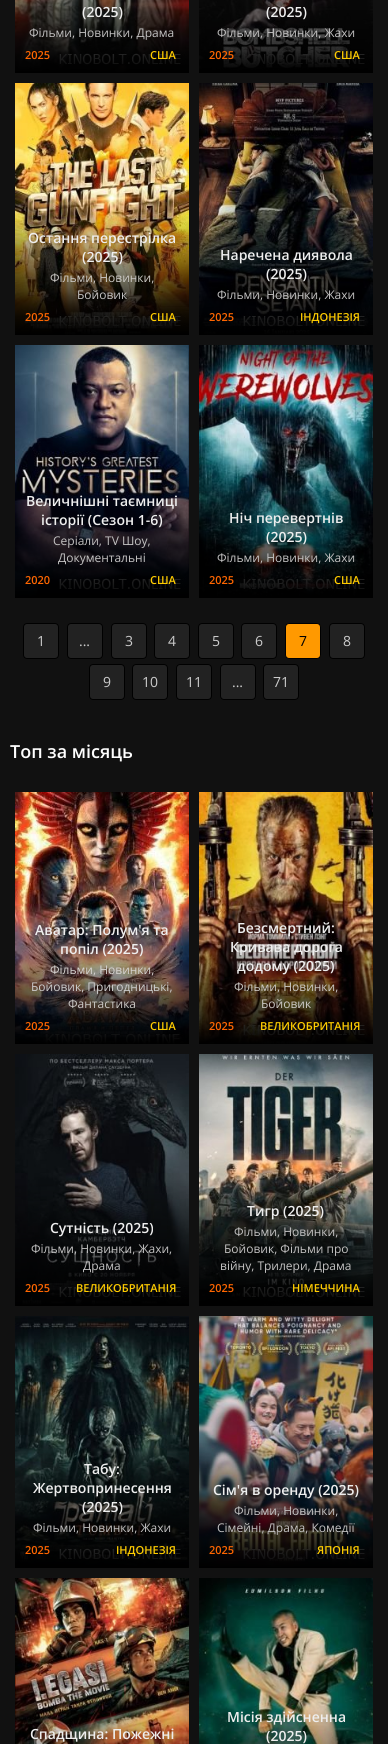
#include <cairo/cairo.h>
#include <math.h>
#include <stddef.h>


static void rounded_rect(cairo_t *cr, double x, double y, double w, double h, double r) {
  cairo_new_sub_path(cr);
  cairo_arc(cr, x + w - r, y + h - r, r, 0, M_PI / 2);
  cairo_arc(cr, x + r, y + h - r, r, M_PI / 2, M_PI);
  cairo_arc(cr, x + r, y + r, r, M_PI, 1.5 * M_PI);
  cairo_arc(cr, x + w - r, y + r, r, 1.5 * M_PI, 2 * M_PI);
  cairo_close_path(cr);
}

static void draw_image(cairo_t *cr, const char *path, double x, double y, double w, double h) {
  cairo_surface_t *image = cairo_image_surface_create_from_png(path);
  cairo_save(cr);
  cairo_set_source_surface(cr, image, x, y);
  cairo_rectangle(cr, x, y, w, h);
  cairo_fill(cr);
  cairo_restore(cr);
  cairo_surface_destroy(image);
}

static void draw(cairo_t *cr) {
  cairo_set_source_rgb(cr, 17 / 255.0, 17 / 255.0, 17 / 255.0);
  cairo_paint(cr);
  draw_image(cr, "images/1.png", 15, 0, 174, 73);
  draw_image(cr, "images/2.png", 199, 0, 174, 73);
  draw_image(cr, "images/3.png", 15, 83, 174, 252);
  draw_image(cr, "images/4.png", 199, 83, 174, 252);
  draw_image(cr, "images/5.png", 15, 345, 174, 253);
  draw_image(cr, "images/6.png", 199, 345, 174, 253);
  cairo_set_source_rgb(cr, 34 / 255.0, 34 / 255.0, 34 / 255.0);
  rounded_rect(cr, 23.5, 623.5, 35, 35, 3.5);
  cairo_fill_preserve(cr);
  cairo_set_source_rgb(cr, 0, 0, 0);
  cairo_set_line_width(cr, 1);
  cairo_stroke(cr);
  cairo_set_source_rgb(cr, 34 / 255.0, 34 / 255.0, 34 / 255.0);
  rounded_rect(cr, 67.5, 623.5, 35, 35, 3.5);
  cairo_fill_preserve(cr);
  cairo_set_source_rgb(cr, 0, 0, 0);
  cairo_stroke(cr);
  cairo_set_source_rgb(cr, 34 / 255.0, 34 / 255.0, 34 / 255.0);
  rounded_rect(cr, 111.5, 623.5, 35, 35, 3.5);
  cairo_fill_preserve(cr);
  cairo_set_source_rgb(cr, 0, 0, 0);
  cairo_stroke(cr);
  cairo_set_source_rgb(cr, 34 / 255.0, 34 / 255.0, 34 / 255.0);
  rounded_rect(cr, 154.5, 623.5, 35, 35, 3.5);
  cairo_fill_preserve(cr);
  cairo_set_source_rgb(cr, 0, 0, 0);
  cairo_stroke(cr);
  cairo_set_source_rgb(cr, 34 / 255.0, 34 / 255.0, 34 / 255.0);
  rounded_rect(cr, 198.5, 623.5, 35, 35, 3.5);
  cairo_fill_preserve(cr);
  cairo_set_source_rgb(cr, 0, 0, 0);
  cairo_stroke(cr);
  cairo_set_source_rgb(cr, 34 / 255.0, 34 / 255.0, 34 / 255.0);
  rounded_rect(cr, 241.5, 623.5, 35, 35, 3.5);
  cairo_fill_preserve(cr);
  cairo_set_source_rgb(cr, 0, 0, 0);
  cairo_stroke(cr);
  cairo_set_source_rgb(cr, 1, 153 / 255.0, 0);
  rounded_rect(cr, 285.5, 623.5, 35, 35, 3.5);
  cairo_fill_preserve(cr);
  cairo_set_source_rgb(cr, 0, 0, 0);
  cairo_stroke(cr);
  cairo_set_source_rgb(cr, 34 / 255.0, 34 / 255.0, 34 / 255.0);
  rounded_rect(cr, 329.5, 623.5, 35, 35, 3.5);
  cairo_fill_preserve(cr);
  cairo_set_source_rgb(cr, 0, 0, 0);
  cairo_stroke(cr);
  cairo_set_source_rgb(cr, 34 / 255.0, 34 / 255.0, 34 / 255.0);
  rounded_rect(cr, 89.5, 664.5, 35, 35, 3.5);
  cairo_fill_preserve(cr);
  cairo_set_source_rgb(cr, 0, 0, 0);
  cairo_stroke(cr);
  cairo_set_source_rgb(cr, 34 / 255.0, 34 / 255.0, 34 / 255.0);
  rounded_rect(cr, 132.5, 664.5, 35, 35, 3.5);
  cairo_fill_preserve(cr);
  cairo_set_source_rgb(cr, 0, 0, 0);
  cairo_stroke(cr);
  cairo_set_source_rgb(cr, 34 / 255.0, 34 / 255.0, 34 / 255.0);
  rounded_rect(cr, 176.5, 664.5, 35, 35, 3.5);
  cairo_fill_preserve(cr);
  cairo_set_source_rgb(cr, 0, 0, 0);
  cairo_stroke(cr);
  cairo_set_source_rgb(cr, 34 / 255.0, 34 / 255.0, 34 / 255.0);
  rounded_rect(cr, 220.5, 664.5, 35, 35, 3.5);
  cairo_fill_preserve(cr);
  cairo_set_source_rgb(cr, 0, 0, 0);
  cairo_stroke(cr);
  cairo_set_source_rgb(cr, 34 / 255.0, 34 / 255.0, 34 / 255.0);
  rounded_rect(cr, 263.5, 664.5, 35, 35, 3.5);
  cairo_fill_preserve(cr);
  cairo_set_source_rgb(cr, 0, 0, 0);
  cairo_stroke(cr);
  draw_image(cr, "images/7.png", 15, 792, 174, 252);
  draw_image(cr, "images/8.png", 199, 792, 174, 252);
  draw_image(cr, "images/9.png", 15, 1054, 174, 252);
  draw_image(cr, "images/10.png", 199, 1054, 174, 252);
  draw_image(cr, "images/11.png", 15, 1316, 174, 252);
  draw_image(cr, "images/12.png", 199, 1316, 174, 252);
  draw_image(cr, "images/13.png", 15, 1578, 174, 166);
  draw_image(cr, "images/14.png", 199, 1578, 174, 166);
  cairo_select_font_face(cr, "Open Sans SemiBold", CAIRO_FONT_SLANT_NORMAL, CAIRO_FONT_WEIGHT_NORMAL);
  cairo_set_font_size(cr, 14);
  cairo_set_source_rgb(cr, 238 / 255.0, 238 / 255.0, 238 / 255.0);
  cairo_move_to(cr, 82, 17);
  cairo_show_text(cr, "(2025)");
  cairo_select_font_face(cr, "Open Sans", CAIRO_FONT_SLANT_NORMAL, CAIRO_FONT_WEIGHT_NORMAL);
  cairo_set_font_size(cr, 12);
  cairo_set_source_rgb(cr, 195 / 255.0, 194 / 255.0, 194 / 255.0);
  cairo_move_to(cr, 29, 37);
  cairo_show_text(cr, "Фільми, Новинки, Драма");
  cairo_select_font_face(cr, "Open Sans SemiBold", CAIRO_FONT_SLANT_NORMAL, CAIRO_FONT_WEIGHT_NORMAL);
  cairo_set_font_size(cr, 11);
  cairo_set_source_rgb(cr, 1, 102 / 255.0, 0);
  cairo_move_to(cr, 25, 59);
  cairo_show_text(cr, "2025");
  cairo_set_source_rgb(cr, 1, 204 / 255.0, 0);
  cairo_move_to(cr, 150, 59);
  cairo_show_text(cr, "США");
  cairo_set_font_size(cr, 14);
  cairo_set_source_rgb(cr, 238 / 255.0, 238 / 255.0, 238 / 255.0);
  cairo_move_to(cr, 266, 17);
  cairo_show_text(cr, "(2025)");
  cairo_select_font_face(cr, "Open Sans", CAIRO_FONT_SLANT_NORMAL, CAIRO_FONT_WEIGHT_NORMAL);
  cairo_set_font_size(cr, 12);
  cairo_set_source_rgb(cr, 195 / 255.0, 194 / 255.0, 194 / 255.0);
  cairo_move_to(cr, 217, 37);
  cairo_show_text(cr, "Фільми, Новинки, Жахи");
  cairo_select_font_face(cr, "Open Sans SemiBold", CAIRO_FONT_SLANT_NORMAL, CAIRO_FONT_WEIGHT_NORMAL);
  cairo_set_font_size(cr, 11);
  cairo_set_source_rgb(cr, 1, 102 / 255.0, 0);
  cairo_move_to(cr, 209, 59);
  cairo_show_text(cr, "2025");
  cairo_set_source_rgb(cr, 1, 204 / 255.0, 0);
  cairo_move_to(cr, 334, 59);
  cairo_show_text(cr, "США");
  cairo_set_font_size(cr, 14);
  cairo_set_source_rgb(cr, 238 / 255.0, 238 / 255.0, 238 / 255.0);
  cairo_move_to(cr, 28, 243);
  cairo_show_text(cr, "Остання перестрілка");
  cairo_move_to(cr, 82, 262);
  cairo_show_text(cr, "(2025)");
  cairo_select_font_face(cr, "Open Sans", CAIRO_FONT_SLANT_NORMAL, CAIRO_FONT_WEIGHT_NORMAL);
  cairo_set_font_size(cr, 12);
  cairo_set_source_rgb(cr, 203 / 255.0, 201 / 255.0, 197 / 255.0);
  cairo_move_to(cr, 50, 282);
  cairo_show_text(cr, "Фільми, Новинки,");
  cairo_set_source_rgb(cr, 195 / 255.0, 194 / 255.0, 194 / 255.0);
  cairo_move_to(cr, 77, 299);
  cairo_show_text(cr, "Бойовик");
  cairo_select_font_face(cr, "Open Sans SemiBold", CAIRO_FONT_SLANT_NORMAL, CAIRO_FONT_WEIGHT_NORMAL);
  cairo_set_font_size(cr, 11);
  cairo_set_source_rgb(cr, 1, 102 / 255.0, 0);
  cairo_move_to(cr, 25, 321);
  cairo_show_text(cr, "2025");
  cairo_set_source_rgb(cr, 1, 204 / 255.0, 0);
  cairo_move_to(cr, 150, 321);
  cairo_show_text(cr, "США");
  cairo_set_font_size(cr, 14);
  cairo_set_source_rgb(cr, 238 / 255.0, 238 / 255.0, 238 / 255.0);
  cairo_move_to(cr, 220, 260);
  cairo_show_text(cr, "Наречена диявола");
  cairo_move_to(cr, 266, 279);
  cairo_show_text(cr, "(2025)");
  cairo_select_font_face(cr, "Open Sans", CAIRO_FONT_SLANT_NORMAL, CAIRO_FONT_WEIGHT_NORMAL);
  cairo_set_font_size(cr, 12);
  cairo_set_source_rgb(cr, 195 / 255.0, 194 / 255.0, 194 / 255.0);
  cairo_move_to(cr, 217, 299);
  cairo_show_text(cr, "Фільми, Новинки, Жахи");
  cairo_select_font_face(cr, "Open Sans SemiBold", CAIRO_FONT_SLANT_NORMAL, CAIRO_FONT_WEIGHT_NORMAL);
  cairo_set_font_size(cr, 11);
  cairo_set_source_rgb(cr, 1, 102 / 255.0, 0);
  cairo_move_to(cr, 209, 321);
  cairo_show_text(cr, "2025");
  cairo_set_source_rgb(cr, 1, 204 / 255.0, 0);
  cairo_move_to(cr, 300, 321);
  cairo_show_text(cr, "ІНДОНЕЗІЯ");
  cairo_set_font_size(cr, 14);
  cairo_set_source_rgb(cr, 238 / 255.0, 238 / 255.0, 238 / 255.0);
  cairo_move_to(cr, 26, 506);
  cairo_show_text(cr, "Величнішні таємниці");
  cairo_move_to(cr, 41, 525);
  cairo_show_text(cr, "історії (Сезон 1-6)");
  cairo_select_font_face(cr, "Open Sans", CAIRO_FONT_SLANT_NORMAL, CAIRO_FONT_WEIGHT_NORMAL);
  cairo_set_font_size(cr, 12);
  cairo_set_source_rgb(cr, 195 / 255.0, 194 / 255.0, 194 / 255.0);
  cairo_move_to(cr, 53, 545);
  cairo_show_text(cr, "Серіали, TV Шоу,");
  cairo_move_to(cr, 58, 562);
  cairo_show_text(cr, "Документальні");
  cairo_select_font_face(cr, "Open Sans SemiBold", CAIRO_FONT_SLANT_NORMAL, CAIRO_FONT_WEIGHT_NORMAL);
  cairo_set_font_size(cr, 11);
  cairo_set_source_rgb(cr, 1, 102 / 255.0, 0);
  cairo_move_to(cr, 25, 584);
  cairo_show_text(cr, "2020");
  cairo_set_source_rgb(cr, 1, 204 / 255.0, 0);
  cairo_move_to(cr, 150, 584);
  cairo_show_text(cr, "США");
  cairo_set_font_size(cr, 14);
  cairo_set_source_rgb(cr, 238 / 255.0, 238 / 255.0, 238 / 255.0);
  cairo_move_to(cr, 229, 523);
  cairo_show_text(cr, "Ніч перевертнів");
  cairo_move_to(cr, 266, 542);
  cairo_show_text(cr, "(2025)");
  cairo_select_font_face(cr, "Open Sans", CAIRO_FONT_SLANT_NORMAL, CAIRO_FONT_WEIGHT_NORMAL);
  cairo_set_font_size(cr, 12);
  cairo_set_source_rgb(cr, 195 / 255.0, 194 / 255.0, 194 / 255.0);
  cairo_move_to(cr, 217, 562);
  cairo_show_text(cr, "Фільми, Новинки, Жахи");
  cairo_select_font_face(cr, "Open Sans SemiBold", CAIRO_FONT_SLANT_NORMAL, CAIRO_FONT_WEIGHT_NORMAL);
  cairo_set_font_size(cr, 11);
  cairo_set_source_rgb(cr, 1, 102 / 255.0, 0);
  cairo_move_to(cr, 209, 584);
  cairo_show_text(cr, "2025");
  cairo_set_source_rgb(cr, 1, 204 / 255.0, 0);
  cairo_move_to(cr, 334, 584);
  cairo_show_text(cr, "США");
  cairo_select_font_face(cr, "Open Sans", CAIRO_FONT_SLANT_NORMAL, CAIRO_FONT_WEIGHT_NORMAL);
  cairo_set_font_size(cr, 14);
  cairo_set_source_rgb(cr, 204 / 255.0, 204 / 255.0, 204 / 255.0);
  cairo_move_to(cr, 37, 646);
  cairo_show_text(cr, "1");
  cairo_move_to(cr, 79, 646);
  cairo_show_text(cr, "...");
  cairo_move_to(cr, 125, 646);
  cairo_show_text(cr, "3");
  cairo_move_to(cr, 168, 646);
  cairo_show_text(cr, "4");
  cairo_move_to(cr, 212, 646);
  cairo_show_text(cr, "5");
  cairo_move_to(cr, 255, 646);
  cairo_show_text(cr, "6");
  cairo_set_source_rgb(cr, 0, 0, 0);
  cairo_move_to(cr, 299, 646);
  cairo_show_text(cr, "7");
  cairo_set_source_rgb(cr, 204 / 255.0, 204 / 255.0, 204 / 255.0);
  cairo_move_to(cr, 343, 646);
  cairo_show_text(cr, "8");
  cairo_move_to(cr, 103, 687);
  cairo_show_text(cr, "9");
  cairo_move_to(cr, 142, 687);
  cairo_show_text(cr, "10");
  cairo_move_to(cr, 186, 687);
  cairo_show_text(cr, "11");
  cairo_move_to(cr, 232, 687);
  cairo_show_text(cr, "...");
  cairo_move_to(cr, 273, 687);
  cairo_show_text(cr, "71");
  cairo_select_font_face(cr, "Open Sans SemiBold", CAIRO_FONT_SLANT_NORMAL, CAIRO_FONT_WEIGHT_NORMAL);
  cairo_set_font_size(cr, 18);
  cairo_set_source_rgb(cr, 1, 1, 1);
  cairo_move_to(cr, 10, 758);
  cairo_show_text(cr, "Топ за місяць");
  cairo_set_font_size(cr, 14);
  cairo_set_source_rgb(cr, 238 / 255.0, 238 / 255.0, 238 / 255.0);
  cairo_move_to(cr, 35, 935);
  cairo_show_text(cr, "Аватар: Полум'я та");
  cairo_move_to(cr, 60, 954);
  cairo_show_text(cr, "попіл (2025)");
  cairo_select_font_face(cr, "Open Sans", CAIRO_FONT_SLANT_NORMAL, CAIRO_FONT_WEIGHT_NORMAL);
  cairo_set_font_size(cr, 12);
  cairo_set_source_rgb(cr, 213 / 255.0, 210 / 255.0, 207 / 255.0);
  cairo_move_to(cr, 50, 974);
  cairo_show_text(cr, "Фільми, Новинки,");
  cairo_set_source_rgb(cr, 204 / 255.0, 204 / 255.0, 204 / 255.0);
  cairo_move_to(cr, 31, 991);
  cairo_show_text(cr, "Бойовик, Пригодницькі,");
  cairo_set_source_rgb(cr, 203 / 255.0, 201 / 255.0, 197 / 255.0);
  cairo_move_to(cr, 68, 1008);
  cairo_show_text(cr, "Фантастика");
  cairo_select_font_face(cr, "Open Sans SemiBold", CAIRO_FONT_SLANT_NORMAL, CAIRO_FONT_WEIGHT_NORMAL);
  cairo_set_font_size(cr, 11);
  cairo_set_source_rgb(cr, 1, 102 / 255.0, 0);
  cairo_move_to(cr, 25, 1030);
  cairo_show_text(cr, "2025");
  cairo_set_source_rgb(cr, 1, 204 / 255.0, 0);
  cairo_move_to(cr, 150, 1030);
  cairo_show_text(cr, "США");
  cairo_set_font_size(cr, 14);
  cairo_set_source_rgb(cr, 238 / 255.0, 238 / 255.0, 238 / 255.0);
  cairo_move_to(cr, 237, 933);
  cairo_show_text(cr, "Безсмертний:");
  cairo_move_to(cr, 230, 952);
  cairo_show_text(cr, "Кривава дорога");
  cairo_move_to(cr, 237, 971);
  cairo_show_text(cr, "додому (2025)");
  cairo_select_font_face(cr, "Open Sans", CAIRO_FONT_SLANT_NORMAL, CAIRO_FONT_WEIGHT_NORMAL);
  cairo_set_font_size(cr, 12);
  cairo_set_source_rgb(cr, 203 / 255.0, 201 / 255.0, 197 / 255.0);
  cairo_move_to(cr, 234, 991);
  cairo_show_text(cr, "Фільми, Новинки,");
  cairo_move_to(cr, 261, 1008);
  cairo_show_text(cr, "Бойовик");
  cairo_select_font_face(cr, "Open Sans SemiBold", CAIRO_FONT_SLANT_NORMAL, CAIRO_FONT_WEIGHT_NORMAL);
  cairo_set_font_size(cr, 11);
  cairo_set_source_rgb(cr, 1, 102 / 255.0, 0);
  cairo_move_to(cr, 209, 1030);
  cairo_show_text(cr, "2025");
  cairo_set_source_rgb(cr, 1, 204 / 255.0, 0);
  cairo_move_to(cr, 260, 1030);
  cairo_show_text(cr, "ВЕЛИКОБРИТАНІЯ");
  cairo_set_font_size(cr, 14);
  cairo_set_source_rgb(cr, 238 / 255.0, 238 / 255.0, 238 / 255.0);
  cairo_move_to(cr, 50, 1233);
  cairo_show_text(cr, "Сутність (2025)");
  cairo_select_font_face(cr, "Open Sans", CAIRO_FONT_SLANT_NORMAL, CAIRO_FONT_WEIGHT_NORMAL);
  cairo_set_font_size(cr, 12);
  cairo_set_source_rgb(cr, 195 / 255.0, 194 / 255.0, 194 / 255.0);
  cairo_move_to(cr, 31, 1253);
  cairo_show_text(cr, "Фільми, Новинки, Жахи,");
  cairo_move_to(cr, 83, 1270);
  cairo_show_text(cr, "Драма");
  cairo_select_font_face(cr, "Open Sans SemiBold", CAIRO_FONT_SLANT_NORMAL, CAIRO_FONT_WEIGHT_NORMAL);
  cairo_set_font_size(cr, 11);
  cairo_set_source_rgb(cr, 1, 102 / 255.0, 0);
  cairo_move_to(cr, 25, 1292);
  cairo_show_text(cr, "2025");
  cairo_set_source_rgb(cr, 1, 204 / 255.0, 0);
  cairo_move_to(cr, 76, 1292);
  cairo_show_text(cr, "ВЕЛИКОБРИТАНІЯ");
  cairo_set_font_size(cr, 14);
  cairo_set_source_rgb(cr, 238 / 255.0, 238 / 255.0, 238 / 255.0);
  cairo_move_to(cr, 247, 1216);
  cairo_show_text(cr, "Тигр (2025)");
  cairo_select_font_face(cr, "Open Sans", CAIRO_FONT_SLANT_NORMAL, CAIRO_FONT_WEIGHT_NORMAL);
  cairo_set_font_size(cr, 12);
  cairo_set_source_rgb(cr, 195 / 255.0, 194 / 255.0, 194 / 255.0);
  cairo_move_to(cr, 234, 1236);
  cairo_show_text(cr, "Фільми, Новинки,");
  cairo_move_to(cr, 224, 1253);
  cairo_show_text(cr, "Бойовик, Фільми про");
  cairo_move_to(cr, 220, 1270);
  cairo_show_text(cr, "війну, Трилери, Драма");
  cairo_select_font_face(cr, "Open Sans SemiBold", CAIRO_FONT_SLANT_NORMAL, CAIRO_FONT_WEIGHT_NORMAL);
  cairo_set_font_size(cr, 11);
  cairo_set_source_rgb(cr, 1, 102 / 255.0, 0);
  cairo_move_to(cr, 209, 1292);
  cairo_show_text(cr, "2025");
  cairo_set_source_rgb(cr, 1, 204 / 255.0, 0);
  cairo_move_to(cr, 292, 1292);
  cairo_show_text(cr, "НІМЕЧЧИНА");
  cairo_set_font_size(cr, 14);
  cairo_set_source_rgb(cr, 238 / 255.0, 238 / 255.0, 238 / 255.0);
  cairo_move_to(cr, 84, 1474);
  cairo_show_text(cr, "Табу:");
  cairo_move_to(cr, 33, 1493);
  cairo_show_text(cr, "Жертвопринесення");
  cairo_move_to(cr, 82, 1512);
  cairo_show_text(cr, "(2025)");
  cairo_select_font_face(cr, "Open Sans", CAIRO_FONT_SLANT_NORMAL, CAIRO_FONT_WEIGHT_NORMAL);
  cairo_set_font_size(cr, 12);
  cairo_set_source_rgb(cr, 195 / 255.0, 194 / 255.0, 194 / 255.0);
  cairo_move_to(cr, 33, 1532);
  cairo_show_text(cr, "Фільми, Новинки, Жахи");
  cairo_select_font_face(cr, "Open Sans SemiBold", CAIRO_FONT_SLANT_NORMAL, CAIRO_FONT_WEIGHT_NORMAL);
  cairo_set_font_size(cr, 11);
  cairo_set_source_rgb(cr, 1, 102 / 255.0, 0);
  cairo_move_to(cr, 25, 1554);
  cairo_show_text(cr, "2025");
  cairo_set_source_rgb(cr, 1, 204 / 255.0, 0);
  cairo_move_to(cr, 116, 1554);
  cairo_show_text(cr, "ІНДОНЕЗІЯ");
  cairo_set_font_size(cr, 14);
  cairo_set_source_rgb(cr, 238 / 255.0, 238 / 255.0, 238 / 255.0);
  cairo_move_to(cr, 213, 1495);
  cairo_show_text(cr, "Сім'я в оренду (2025)");
  cairo_select_font_face(cr, "Open Sans", CAIRO_FONT_SLANT_NORMAL, CAIRO_FONT_WEIGHT_NORMAL);
  cairo_set_font_size(cr, 12);
  cairo_set_source_rgb(cr, 195 / 255.0, 194 / 255.0, 194 / 255.0);
  cairo_move_to(cr, 234, 1515);
  cairo_show_text(cr, "Фільми, Новинки,");
  cairo_move_to(cr, 217, 1532);
  cairo_show_text(cr, "Сімейні, Драма, Комедії");
  cairo_select_font_face(cr, "Open Sans SemiBold", CAIRO_FONT_SLANT_NORMAL, CAIRO_FONT_WEIGHT_NORMAL);
  cairo_set_font_size(cr, 11);
  cairo_set_source_rgb(cr, 1, 102 / 255.0, 0);
  cairo_move_to(cr, 209, 1554);
  cairo_show_text(cr, "2025");
  cairo_set_source_rgb(cr, 1, 204 / 255.0, 0);
  cairo_move_to(cr, 317, 1554);
  cairo_show_text(cr, "ЯПОНІЯ");
  cairo_set_font_size(cr, 14);
  cairo_set_source_rgb(cr, 238 / 255.0, 238 / 255.0, 238 / 255.0);
  cairo_move_to(cr, 30, 1739);
  cairo_show_text(cr, "Спадщина: Пожежні");
  cairo_move_to(cr, 227, 1722);
  cairo_show_text(cr, "Місія здійсненна");
  cairo_move_to(cr, 266, 1741);
  cairo_show_text(cr, "(2025)");
}

int main(void) {
  cairo_surface_t *surface = cairo_image_surface_create(CAIRO_FORMAT_RGB24, 388, 1744);
  cairo_t *cr = cairo_create(surface);
  cairo_font_options_t *options = cairo_font_options_create();
  cairo_font_options_set_hint_metrics(options, CAIRO_HINT_METRICS_OFF);
  cairo_font_options_set_hint_style(options, CAIRO_HINT_STYLE_NONE);
  cairo_set_font_options(cr, options);
  cairo_set_miter_limit(cr, 4);
  draw(cr);
  cairo_surface_write_to_png(surface, "out.png");
  cairo_font_options_destroy(options);
  cairo_destroy(cr);
  cairo_surface_destroy(surface);
  return 0;
}
